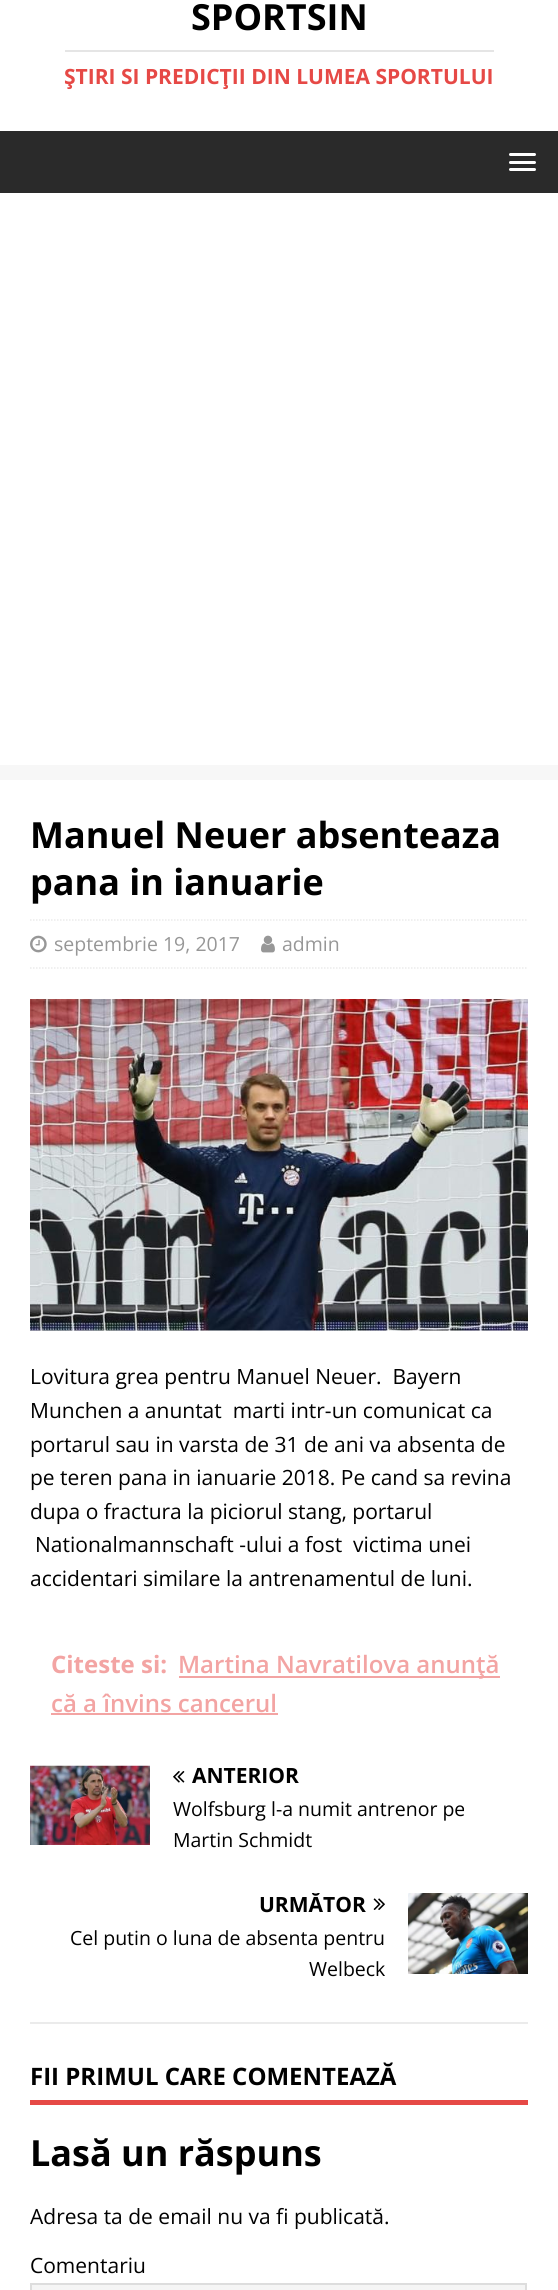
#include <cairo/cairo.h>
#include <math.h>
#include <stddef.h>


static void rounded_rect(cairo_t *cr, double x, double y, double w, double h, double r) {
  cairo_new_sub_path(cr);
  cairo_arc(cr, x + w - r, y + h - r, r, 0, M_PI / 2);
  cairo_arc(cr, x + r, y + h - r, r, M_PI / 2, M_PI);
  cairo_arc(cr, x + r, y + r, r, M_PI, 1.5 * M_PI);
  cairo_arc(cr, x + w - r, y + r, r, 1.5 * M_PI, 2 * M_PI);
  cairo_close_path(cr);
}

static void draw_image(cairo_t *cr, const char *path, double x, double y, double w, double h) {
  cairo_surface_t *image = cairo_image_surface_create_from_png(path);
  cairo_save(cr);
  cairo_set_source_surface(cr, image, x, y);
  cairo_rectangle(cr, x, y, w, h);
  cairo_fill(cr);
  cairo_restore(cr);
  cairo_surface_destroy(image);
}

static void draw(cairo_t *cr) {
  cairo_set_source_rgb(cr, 247 / 255.0, 247 / 255.0, 247 / 255.0);
  cairo_paint(cr);
  cairo_set_source_rgb(cr, 1, 1, 1);
  cairo_rectangle(cr, 0, 0, 558, 765);
  cairo_fill(cr);
  cairo_set_source_rgb(cr, 229 / 255.0, 229 / 255.0, 229 / 255.0);
  cairo_rectangle(cr, 65, 50, 429, 2);
  cairo_fill(cr);
  cairo_set_source_rgb(cr, 42 / 255.0, 42 / 255.0, 42 / 255.0);
  cairo_rectangle(cr, 0, 131, 558, 62);
  cairo_fill(cr);
  cairo_set_source_rgb(cr, 1, 1, 1);
  rounded_rect(cr, 509, 153, 27, 3, 1.5);
  cairo_fill(cr);
  rounded_rect(cr, 509, 161, 27, 3, 1.5);
  cairo_fill(cr);
  rounded_rect(cr, 509, 168, 27, 3, 1.5);
  cairo_fill(cr);
  cairo_rectangle(cr, 0, 780, 558, 1510);
  cairo_fill(cr);
  cairo_new_path(cr);
  cairo_move_to(cr, 30, 920);
  cairo_line_to(cr, 528, 920);
  cairo_set_source_rgb(cr, 235 / 255.0, 235 / 255.0, 235 / 255.0);
  cairo_set_line_width(cr, 1.5);
  cairo_set_dash(cr, (double[]){1.5, 1.5}, 2, 0);
  cairo_stroke(cr);
  cairo_new_path(cr);
  cairo_move_to(cr, 30, 968);
  cairo_line_to(cr, 528, 968);
  cairo_stroke(cr);
  draw_image(cr, "images/1.png", 30, 935, 17, 18);
  draw_image(cr, "images/2.png", 261, 935, 14, 18);
  draw_image(cr, "images/3.png", 30, 999, 498, 332);
  cairo_set_source_rgb(cr, 243 / 255.0, 164 / 255.0, 163 / 255.0);
  cairo_rectangle(cr, 179, 1676, 321, 2);
  cairo_fill(cr);
  cairo_rectangle(cr, 51, 1713, 227, 2);
  cairo_fill(cr);
  cairo_set_source_rgb(cr, 235 / 255.0, 235 / 255.0, 235 / 255.0);
  cairo_rectangle(cr, 30, 2022, 498, 2);
  cairo_fill(cr);
  draw_image(cr, "images/4.png", 30, 1765, 120, 80);
  draw_image(cr, "images/5.png", 173, 1771, 12, 12);
  draw_image(cr, "images/6.png", 373, 1898, 12, 12);
  draw_image(cr, "images/7.png", 408, 1893, 120, 81);
  cairo_set_source_rgb(cr, 230 / 255.0, 73 / 255.0, 70 / 255.0);
  cairo_rectangle(cr, 30, 2100, 498, 5);
  cairo_fill(cr);
  cairo_set_source_rgb(cr, 245 / 255.0, 245 / 255.0, 245 / 255.0);
  cairo_rectangle(cr, 31, 2284, 495, 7);
  cairo_fill_preserve(cr);
  cairo_set_source_rgb(cr, 221 / 255.0, 221 / 255.0, 221 / 255.0);
  cairo_set_line_width(cr, 2);
  cairo_set_dash(cr, NULL, 0, 0);
  cairo_stroke(cr);
  cairo_select_font_face(cr, "Open Sans", CAIRO_FONT_SLANT_NORMAL, CAIRO_FONT_WEIGHT_BOLD);
  cairo_set_font_size(cr, 36);
  cairo_set_source_rgb(cr, 0, 0, 0);
  cairo_move_to(cr, 191, 30);
  cairo_show_text(cr, "SPORTSIN");
  cairo_set_font_size(cr, 21);
  cairo_set_source_rgb(cr, 230 / 255.0, 73 / 255.0, 70 / 255.0);
  cairo_move_to(cr, 64, 84);
  cairo_show_text(cr, "ŞTIRI SI PREDICŢII DIN LUMEA SPORTULUI");
  cairo_set_font_size(cr, 36);
  cairo_set_source_rgb(cr, 0, 0, 0);
  cairo_move_to(cr, 30, 848);
  cairo_show_text(cr, "Manuel Neuer absenteaza");
  cairo_move_to(cr, 30, 895);
  cairo_show_text(cr, "pana in ianuarie");
  cairo_select_font_face(cr, "Open Sans", CAIRO_FONT_SLANT_NORMAL, CAIRO_FONT_WEIGHT_NORMAL);
  cairo_set_font_size(cr, 19.5);
  cairo_set_source_rgb(cr, 151 / 255.0, 151 / 255.0, 151 / 255.0);
  cairo_move_to(cr, 54, 951);
  cairo_show_text(cr, "septembrie 19, 2017");
  cairo_move_to(cr, 282, 951);
  cairo_show_text(cr, "admin");
  cairo_set_font_size(cr, 21);
  cairo_set_source_rgb(cr, 0, 0, 0);
  cairo_move_to(cr, 30, 1384);
  cairo_show_text(cr, "Lovitura grea pentru Manuel Neuer.  Bayern");
  cairo_move_to(cr, 30, 1418);
  cairo_show_text(cr, "Munchen a anuntat  marti intr-un comunicat ca");
  cairo_move_to(cr, 30, 1452);
  cairo_show_text(cr, "portarul sau in varsta de 31 de ani va absenta de");
  cairo_move_to(cr, 30, 1485);
  cairo_show_text(cr, "pe teren pana in ianuarie 2018. Pe cand sa revina");
  cairo_move_to(cr, 30, 1519);
  cairo_show_text(cr, "dupa o fractura la piciorul stang, portarul");
  cairo_move_to(cr, 35, 1552);
  cairo_show_text(cr, "Nationalmannschaft -ului a fost  victima unei");
  cairo_move_to(cr, 30, 1586);
  cairo_show_text(cr, "accidentari similare la antrenamentul de luni.");
  cairo_select_font_face(cr, "Open Sans", CAIRO_FONT_SLANT_NORMAL, CAIRO_FONT_WEIGHT_BOLD);
  cairo_set_font_size(cr, 24);
  cairo_set_source_rgb(cr, 243 / 255.0, 164 / 255.0, 163 / 255.0);
  cairo_move_to(cr, 51, 1673);
  cairo_show_text(cr, "Citeste si:");
  cairo_select_font_face(cr, "Open Sans SemiBold", CAIRO_FONT_SLANT_NORMAL, CAIRO_FONT_WEIGHT_NORMAL);
  cairo_move_to(cr, 178, 1673);
  cairo_show_text(cr, "Martina Navratilova anunţă");
  cairo_move_to(cr, 51, 1712);
  cairo_show_text(cr, "că a învins cancerul");
  cairo_select_font_face(cr, "Open Sans", CAIRO_FONT_SLANT_NORMAL, CAIRO_FONT_WEIGHT_BOLD);
  cairo_set_font_size(cr, 21);
  cairo_set_source_rgb(cr, 0, 0, 0);
  cairo_move_to(cr, 192, 1783);
  cairo_show_text(cr, "ANTERIOR");
  cairo_select_font_face(cr, "Open Sans", CAIRO_FONT_SLANT_NORMAL, CAIRO_FONT_WEIGHT_NORMAL);
  cairo_set_font_size(cr, 19.5);
  cairo_move_to(cr, 173, 1816);
  cairo_show_text(cr, "Wolfsburg l-a numit antrenor pe");
  cairo_move_to(cr, 173, 1847);
  cairo_show_text(cr, "Martin Schmidt");
  cairo_save(cr);
  cairo_rectangle(cr, 30, 1893, 356, 21);
  cairo_clip(cr);
  cairo_select_font_face(cr, "Open Sans", CAIRO_FONT_SLANT_NORMAL, CAIRO_FONT_WEIGHT_BOLD);
  cairo_set_font_size(cr, 21);
  cairo_move_to(cr, 259, 1912);
  cairo_show_text(cr, "URMĂTOR");
  cairo_restore(cr);
  cairo_move_to(cr, 70, 1945);
  cairo_show_text(cr, "Cel putin o luna de absenta pentru");
  cairo_move_to(cr, 309, 1976);
  cairo_show_text(cr, "Welbeck");
  cairo_select_font_face(cr, "Open Sans", CAIRO_FONT_SLANT_NORMAL, CAIRO_FONT_WEIGHT_BOLD);
  cairo_set_font_size(cr, 24);
  cairo_move_to(cr, 30, 2085);
  cairo_show_text(cr, "FII PRIMUL CARE COMENTEAZĂ");
  cairo_set_font_size(cr, 36);
  cairo_move_to(cr, 30, 2166);
  cairo_show_text(cr, "Lasă un răspuns");
  cairo_select_font_face(cr, "Open Sans", CAIRO_FONT_SLANT_NORMAL, CAIRO_FONT_WEIGHT_NORMAL);
  cairo_set_font_size(cr, 21);
  cairo_move_to(cr, 30, 2224);
  cairo_show_text(cr, "Adresa ta de email nu va fi publicată.");
  cairo_move_to(cr, 30, 2273);
  cairo_show_text(cr, "Comentariu");
}

int main(void) {
  cairo_surface_t *surface = cairo_image_surface_create(CAIRO_FORMAT_RGB24, 558, 2290);
  cairo_t *cr = cairo_create(surface);
  cairo_font_options_t *options = cairo_font_options_create();
  cairo_font_options_set_hint_metrics(options, CAIRO_HINT_METRICS_OFF);
  cairo_font_options_set_hint_style(options, CAIRO_HINT_STYLE_NONE);
  cairo_set_font_options(cr, options);
  cairo_set_miter_limit(cr, 4);
  draw(cr);
  cairo_surface_write_to_png(surface, "out.png");
  cairo_font_options_destroy(options);
  cairo_destroy(cr);
  cairo_surface_destroy(surface);
  return 0;
}
